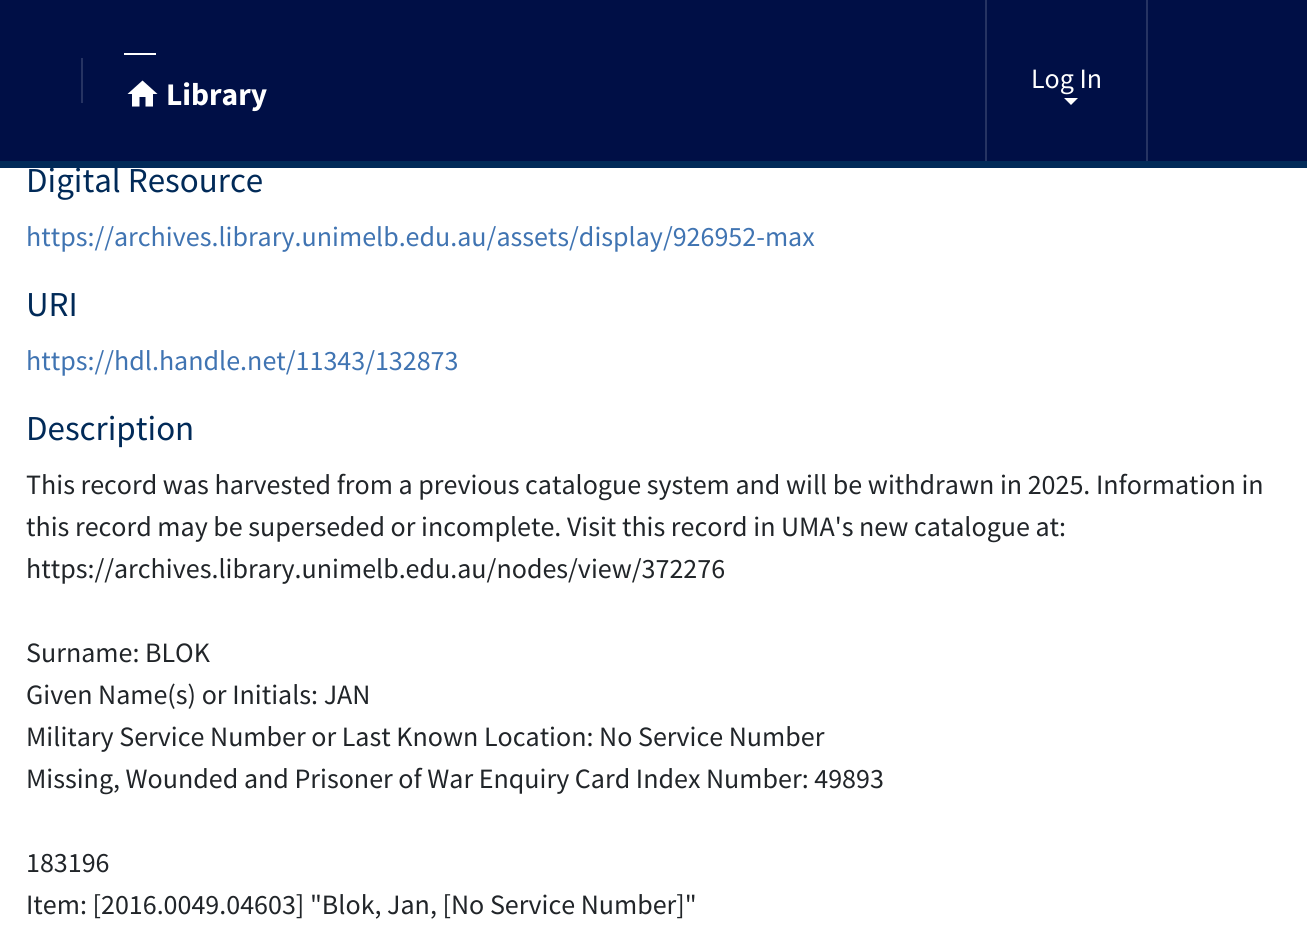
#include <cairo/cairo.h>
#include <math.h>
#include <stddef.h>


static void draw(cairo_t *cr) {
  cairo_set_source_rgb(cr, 1, 1, 1);
  cairo_paint(cr);
  cairo_set_source_rgb(cr, 0, 15 / 255.0, 70 / 255.0);
  cairo_rectangle(cr, 0, 0, 1307, 161);
  cairo_fill(cr);
  cairo_set_source_rgb(cr, 38 / 255.0, 51 / 255.0, 98 / 255.0);
  cairo_rectangle(cr, 81, 58, 2, 45);
  cairo_fill(cr);
  cairo_set_source_rgb(cr, 1, 1, 1);
  cairo_rectangle(cr, 124, 53, 32, 2);
  cairo_fill(cr);
  cairo_new_path(cr);
  cairo_move_to(cr, 139.5, 106.5);
  cairo_line_to(cr, 139.5, 97);
  cairo_line_to(cr, 145.5, 97);
  cairo_line_to(cr, 145.5, 106.5);
  cairo_line_to(cr, 153, 106.5);
  cairo_line_to(cr, 153, 94);
  cairo_line_to(cr, 157.5, 94);
  cairo_line_to(cr, 142.5, 80.5);
  cairo_line_to(cr, 127.5, 94);
  cairo_line_to(cr, 132, 94);
  cairo_line_to(cr, 132, 106.5);
  cairo_close_path(cr);
  cairo_fill(cr);
  cairo_set_source_rgb(cr, 38 / 255.0, 51 / 255.0, 98 / 255.0);
  cairo_rectangle(cr, 985, 0, 2, 161);
  cairo_fill(cr);
  cairo_set_source_rgb(cr, 1, 1, 1);
  cairo_new_path(cr);
  cairo_move_to(cr, 1064, 98);
  cairo_line_to(cr, 1078, 98);
  cairo_line_to(cr, 1071, 105);
  cairo_close_path(cr);
  cairo_fill(cr);
  cairo_set_source_rgb(cr, 38 / 255.0, 51 / 255.0, 98 / 255.0);
  cairo_rectangle(cr, 1146, 0, 2, 161);
  cairo_fill(cr);
  cairo_set_source_rgb(cr, 1 / 255.0, 42 / 255.0, 88 / 255.0);
  cairo_rectangle(cr, 0, 161, 1307, 7);
  cairo_fill(cr);
  cairo_select_font_face(cr, "Source Sans Pro", CAIRO_FONT_SLANT_NORMAL, CAIRO_FONT_WEIGHT_BOLD);
  cairo_set_font_size(cr, 31.5);
  cairo_set_source_rgb(cr, 1, 1, 1);
  cairo_move_to(cr, 166, 105);
  cairo_show_text(cr, "Library");
  cairo_select_font_face(cr, "Source Sans Pro", CAIRO_FONT_SLANT_NORMAL, CAIRO_FONT_WEIGHT_NORMAL);
  cairo_set_font_size(cr, 28);
  cairo_move_to(cr, 1031, 88);
  cairo_show_text(cr, "Log In");
  cairo_set_font_size(cr, 35);
  cairo_set_source_rgb(cr, 1 / 255.0, 42 / 255.0, 88 / 255.0);
  cairo_move_to(cr, 26, 192);
  cairo_show_text(cr, "Digital Resource");
  cairo_set_font_size(cr, 28);
  cairo_set_source_rgb(cr, 64 / 255.0, 116 / 255.0, 178 / 255.0);
  cairo_move_to(cr, 26, 246);
  cairo_show_text(cr, "https://archives.library.unimelb.edu.au/assets/display/926952-max");
  cairo_set_font_size(cr, 35);
  cairo_set_source_rgb(cr, 1 / 255.0, 42 / 255.0, 88 / 255.0);
  cairo_move_to(cr, 26, 316);
  cairo_show_text(cr, "URI");
  cairo_set_font_size(cr, 28);
  cairo_set_source_rgb(cr, 64 / 255.0, 116 / 255.0, 178 / 255.0);
  cairo_move_to(cr, 26, 370);
  cairo_show_text(cr, "https://hdl.handle.net/11343/132873");
  cairo_set_font_size(cr, 35);
  cairo_set_source_rgb(cr, 1 / 255.0, 42 / 255.0, 88 / 255.0);
  cairo_move_to(cr, 26, 440);
  cairo_show_text(cr, "Description");
  cairo_set_font_size(cr, 28);
  cairo_set_source_rgb(cr, 33 / 255.0, 37 / 255.0, 41 / 255.0);
  cairo_move_to(cr, 26, 494);
  cairo_show_text(cr, "This record was harvested from a previous catalogue system and will be withdrawn in 2025. Information in");
  cairo_move_to(cr, 26, 536);
  cairo_show_text(cr, "this record may be superseded or incomplete. Visit this record in UMA's new catalogue at:");
  cairo_move_to(cr, 26, 578);
  cairo_show_text(cr, "https://archives.library.unimelb.edu.au/nodes/view/372276");
  cairo_move_to(cr, 26, 662);
  cairo_show_text(cr, "Surname: BLOK");
  cairo_move_to(cr, 26, 704);
  cairo_show_text(cr, "Given Name(s) or Initials: JAN");
  cairo_move_to(cr, 26, 746);
  cairo_show_text(cr, "Military Service Number or Last Known Location: No Service Number");
  cairo_move_to(cr, 26, 788);
  cairo_show_text(cr, "Missing, Wounded and Prisoner of War Enquiry Card Index Number: 49893");
  cairo_move_to(cr, 26, 872);
  cairo_show_text(cr, "183196");
  cairo_move_to(cr, 26, 914);
  cairo_show_text(cr, "Item: [2016.0049.04603] \"Blok, Jan, [No Service Number]\"");
}

int main(void) {
  cairo_surface_t *surface = cairo_image_surface_create(CAIRO_FORMAT_RGB24, 1307, 944);
  cairo_t *cr = cairo_create(surface);
  cairo_font_options_t *options = cairo_font_options_create();
  cairo_font_options_set_hint_metrics(options, CAIRO_HINT_METRICS_OFF);
  cairo_font_options_set_hint_style(options, CAIRO_HINT_STYLE_NONE);
  cairo_set_font_options(cr, options);
  cairo_set_miter_limit(cr, 4);
  draw(cr);
  cairo_surface_write_to_png(surface, "out.png");
  cairo_font_options_destroy(options);
  cairo_destroy(cr);
  cairo_surface_destroy(surface);
  return 0;
}
